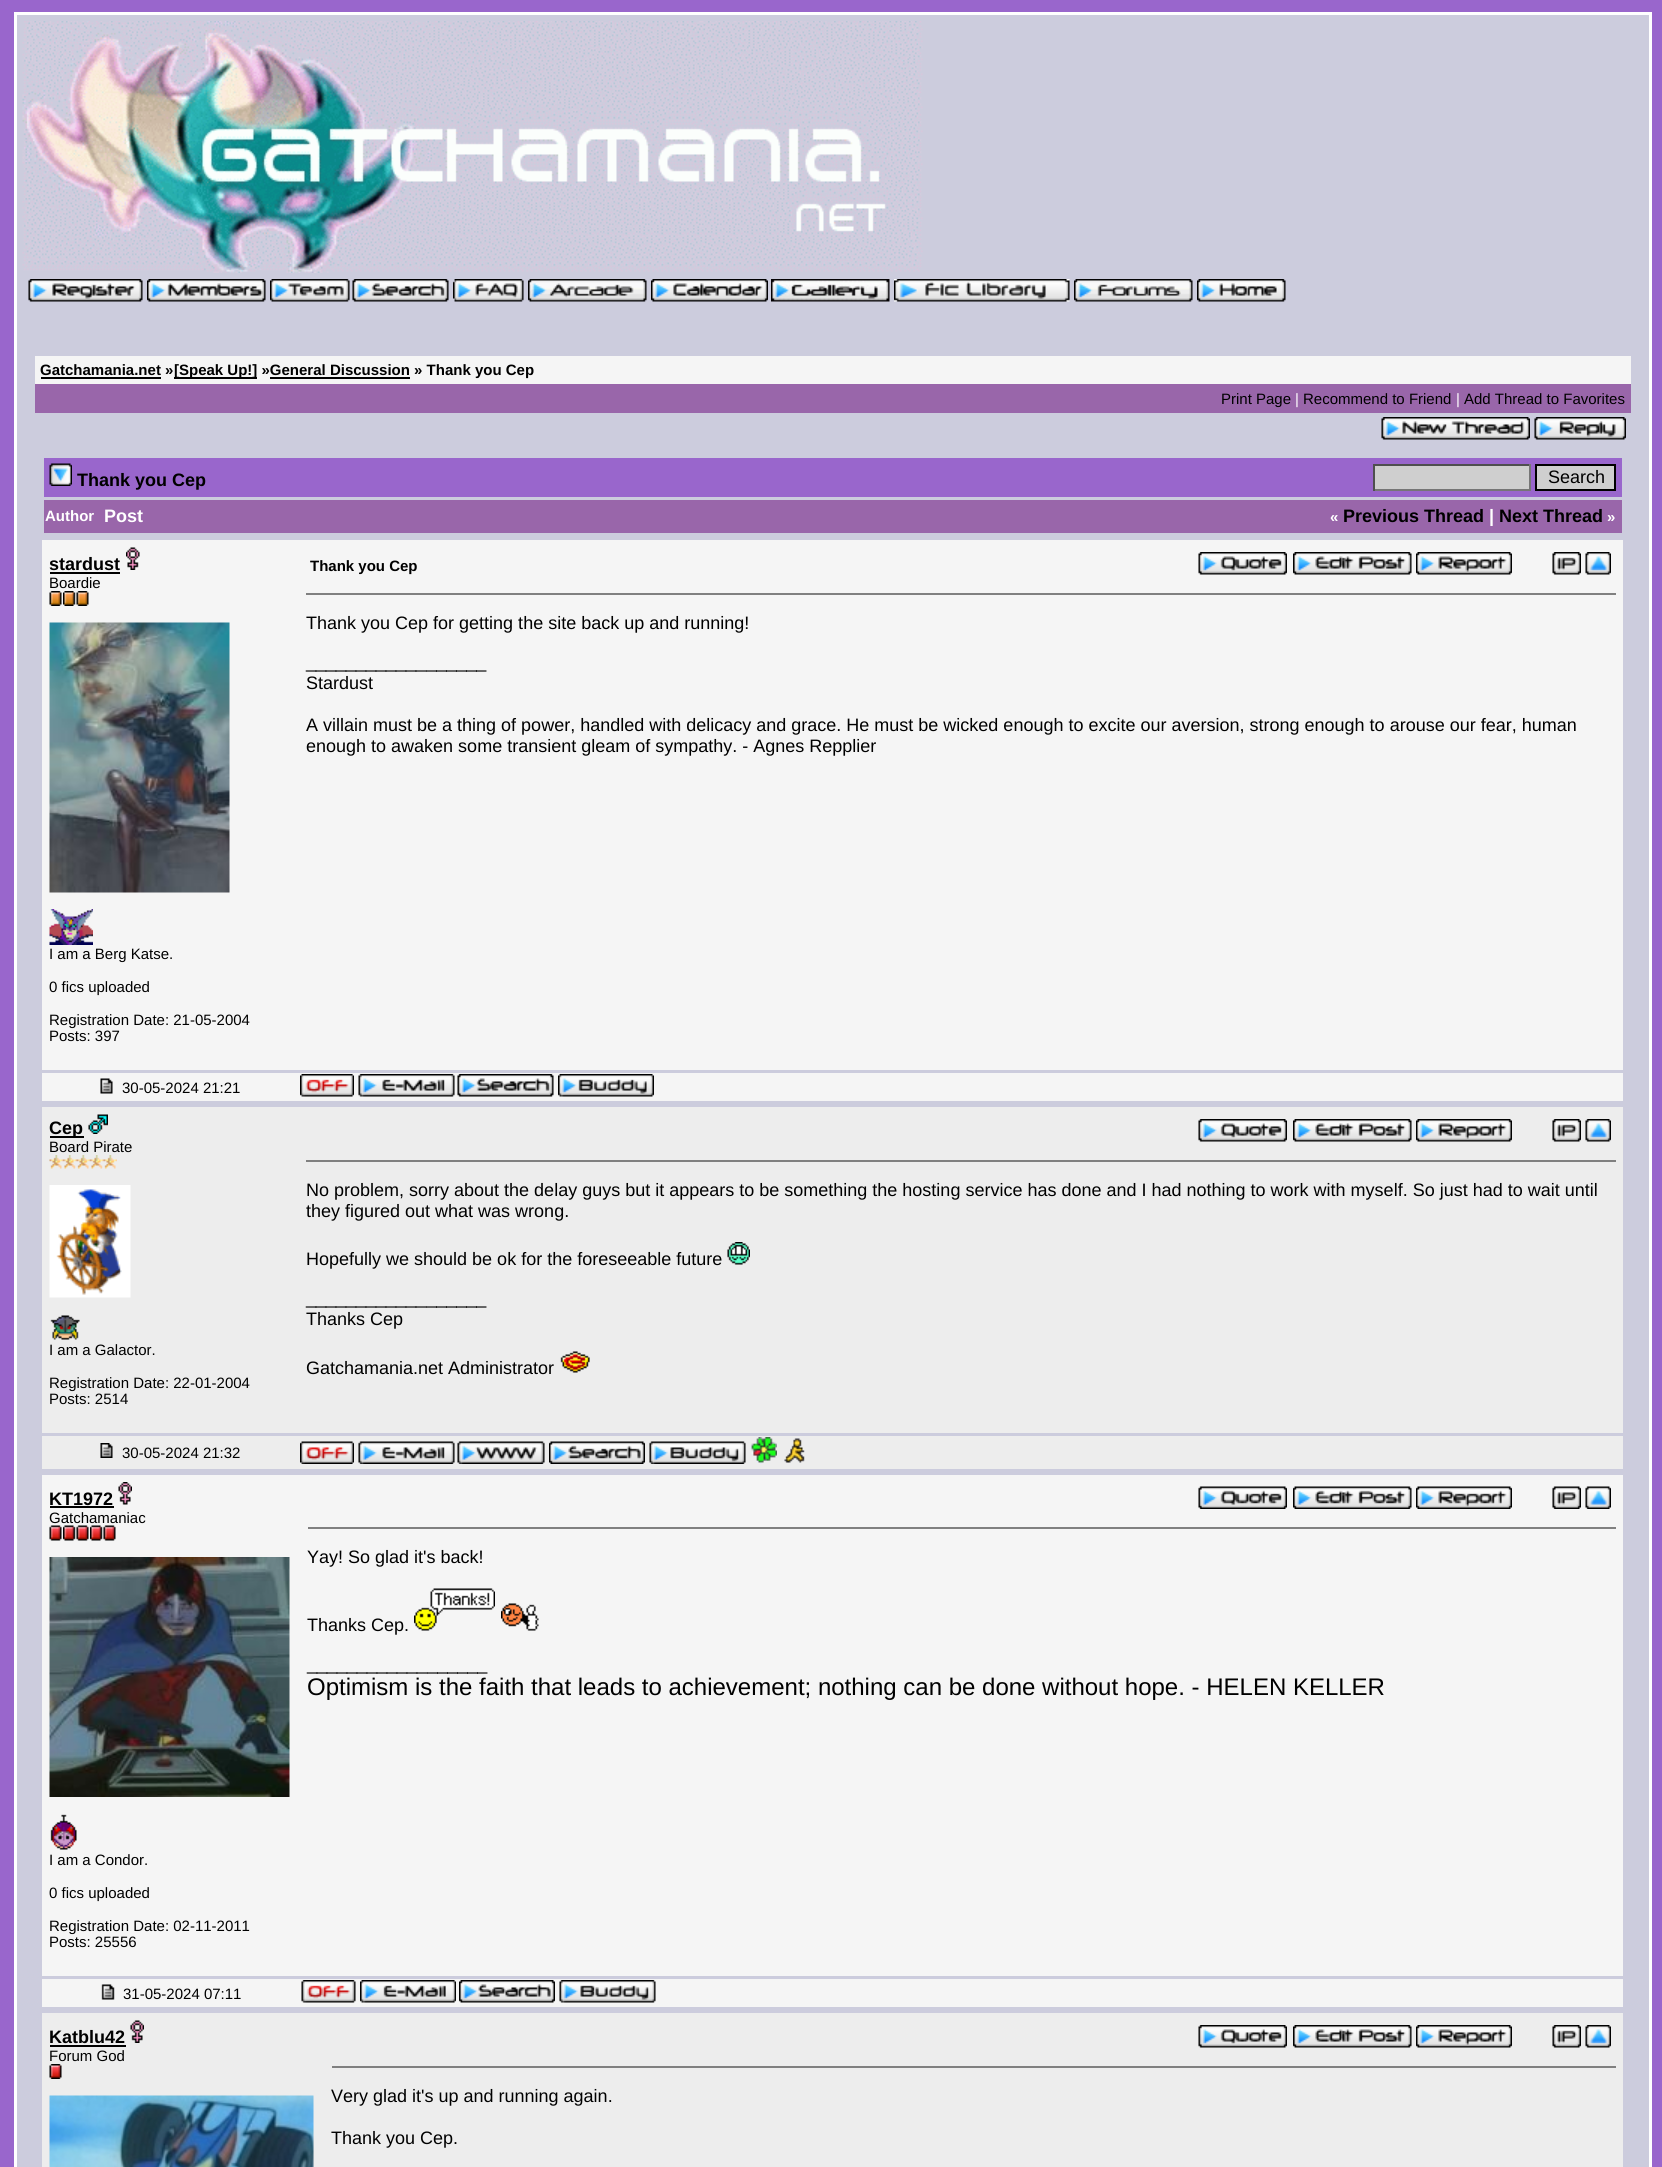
#include <cairo/cairo.h>
#include <math.h>
#include <stddef.h>


static void draw_image(cairo_t *cr, const char *path, double x, double y, double w, double h) {
  cairo_surface_t *image = cairo_image_surface_create_from_png(path);
  cairo_save(cr);
  cairo_set_source_surface(cr, image, x, y);
  cairo_rectangle(cr, x, y, w, h);
  cairo_fill(cr);
  cairo_restore(cr);
  cairo_surface_destroy(image);
}

static void draw(cairo_t *cr) {
  cairo_set_source_rgb(cr, 153 / 255.0, 102 / 255.0, 204 / 255.0);
  cairo_paint(cr);
  cairo_set_source_rgb(cr, 1, 1, 1);
  cairo_rectangle(cr, 14, 12, 1638, 2155);
  cairo_fill(cr);
  cairo_set_source_rgb(cr, 204 / 255.0, 204 / 255.0, 221 / 255.0);
  cairo_rectangle(cr, 17, 15, 1632, 2152);
  cairo_fill(cr);
  draw_image(cr, "images/1.png", 22, 21, 901, 252);
  draw_image(cr, "images/2.png", 28, 279, 115, 23);
  draw_image(cr, "images/3.png", 147, 279, 119, 23);
  draw_image(cr, "images/4.png", 270, 279, 80, 23);
  draw_image(cr, "images/5.png", 352, 279, 97, 23);
  draw_image(cr, "images/6.png", 453, 279, 71, 23);
  draw_image(cr, "images/7.png", 528, 279, 119, 23);
  draw_image(cr, "images/8.png", 651, 279, 117, 23);
  draw_image(cr, "images/9.png", 771, 279, 119, 23);
  draw_image(cr, "images/10.png", 894, 279, 176, 23);
  draw_image(cr, "images/11.png", 1074, 279, 119, 23);
  draw_image(cr, "images/12.png", 1197, 279, 89, 23);
  cairo_set_source_rgb(cr, 245 / 255.0, 245 / 255.0, 245 / 255.0);
  cairo_rectangle(cr, 35, 356, 1596, 28);
  cairo_fill(cr);
  cairo_set_source_rgb(cr, 0, 0, 0);
  cairo_rectangle(cr, 41, 377, 120, 2);
  cairo_fill(cr);
  cairo_rectangle(cr, 174, 377, 83, 2);
  cairo_fill(cr);
  cairo_rectangle(cr, 270, 377, 140, 2);
  cairo_fill(cr);
  cairo_set_source_rgb(cr, 153 / 255.0, 102 / 255.0, 170 / 255.0);
  cairo_rectangle(cr, 35, 384, 1596, 29);
  cairo_fill(cr);
  draw_image(cr, "images/13.png", 1381, 417, 149, 23);
  draw_image(cr, "images/14.png", 1534, 417, 92, 23);
  cairo_set_source_rgb(cr, 153 / 255.0, 102 / 255.0, 204 / 255.0);
  cairo_rectangle(cr, 44, 458, 1578, 39);
  cairo_fill(cr);
  draw_image(cr, "images/15.png", 49, 463, 23, 23);
  cairo_set_source_rgb(cr, 207 / 255.0, 207 / 255.0, 207 / 255.0);
  cairo_rectangle(cr, 1375, 466, 154, 23);
  cairo_fill(cr);
  cairo_set_source_rgb(cr, 79 / 255.0, 79 / 255.0, 79 / 255.0);
  cairo_rectangle(cr, 1373, 464, 157, 2);
  cairo_fill(cr);
  cairo_set_source_rgb(cr, 118 / 255.0, 118 / 255.0, 118 / 255.0);
  cairo_rectangle(cr, 1529, 464, 2, 27);
  cairo_fill(cr);
  cairo_rectangle(cr, 1373, 489, 157, 2);
  cairo_fill(cr);
  cairo_set_source_rgb(cr, 79 / 255.0, 79 / 255.0, 79 / 255.0);
  cairo_rectangle(cr, 1373, 464, 2, 27);
  cairo_fill(cr);
  cairo_set_source_rgb(cr, 207 / 255.0, 207 / 255.0, 207 / 255.0);
  cairo_rectangle(cr, 1536, 465, 79, 25);
  cairo_fill_preserve(cr);
  cairo_set_source_rgb(cr, 0, 0, 0);
  cairo_stroke(cr);
  cairo_set_source_rgb(cr, 153 / 255.0, 102 / 255.0, 170 / 255.0);
  cairo_rectangle(cr, 44, 500, 1578, 33);
  cairo_fill(cr);
  cairo_set_source_rgb(cr, 245 / 255.0, 245 / 255.0, 245 / 255.0);
  cairo_rectangle(cr, 42, 540, 1581, 530);
  cairo_fill(cr);
  cairo_set_source_rgb(cr, 0, 0, 0);
  cairo_rectangle(cr, 50, 572, 70, 2);
  cairo_fill(cr);
  draw_image(cr, "images/16.png", 126, 547, 14, 23);
  draw_image(cr, "images/17.png", 49, 591, 13, 15);
  draw_image(cr, "images/18.png", 63, 591, 13, 15);
  draw_image(cr, "images/17.png", 76, 591, 13, 15);
  draw_image(cr, "images/19.png", 49, 622, 181, 271);
  draw_image(cr, "images/20.png", 49, 909, 44, 36);
  draw_image(cr, "images/21.png", 1198, 552, 89, 23);
  draw_image(cr, "images/22.png", 1293, 552, 119, 23);
  draw_image(cr, "images/23.png", 1416, 552, 96, 23);
  draw_image(cr, "images/24.png", 1552, 552, 29, 23);
  draw_image(cr, "images/25.png", 1585, 552, 26, 23);
  cairo_set_source_rgb(cr, 128 / 255.0, 128 / 255.0, 128 / 255.0);
  cairo_rectangle(cr, 306, 593, 1310, 2);
  cairo_fill(cr);
  cairo_set_source_rgb(cr, 245 / 255.0, 245 / 255.0, 245 / 255.0);
  cairo_rectangle(cr, 42, 1073, 1581, 28);
  cairo_fill(cr);
  draw_image(cr, "images/26.png", 100, 1078, 13, 16);
  draw_image(cr, "images/27.png", 300, 1074, 54, 23);
  draw_image(cr, "images/28.png", 358, 1074, 97, 23);
  draw_image(cr, "images/29.png", 457, 1074, 97, 23);
  draw_image(cr, "images/30.png", 558, 1074, 96, 23);
  cairo_set_source_rgb(cr, 237 / 255.0, 237 / 255.0, 237 / 255.0);
  cairo_rectangle(cr, 42, 1107, 1581, 326);
  cairo_fill(cr);
  cairo_set_source_rgb(cr, 0, 0, 0);
  cairo_rectangle(cr, 50, 1136, 34, 2);
  cairo_fill(cr);
  draw_image(cr, "images/31.png", 88, 1114, 20, 20);
  draw_image(cr, "images/32.png", 49, 1155, 68, 14);
  draw_image(cr, "images/33.png", 49, 1185, 82, 113);
  draw_image(cr, "images/34.png", 50, 1315, 30, 25);
  draw_image(cr, "images/35.png", 1198, 1119, 89, 23);
  draw_image(cr, "images/36.png", 1293, 1119, 119, 23);
  draw_image(cr, "images/37.png", 1416, 1119, 96, 23);
  draw_image(cr, "images/38.png", 1552, 1119, 29, 23);
  draw_image(cr, "images/39.png", 1585, 1119, 26, 23);
  cairo_set_source_rgb(cr, 128 / 255.0, 128 / 255.0, 128 / 255.0);
  cairo_rectangle(cr, 306, 1160, 1310, 2);
  cairo_fill(cr);
  draw_image(cr, "images/40.png", 727, 1242, 23, 23);
  draw_image(cr, "images/41.png", 560, 1351, 30, 22);
  cairo_set_source_rgb(cr, 237 / 255.0, 237 / 255.0, 237 / 255.0);
  cairo_rectangle(cr, 42, 1436, 1581, 33);
  cairo_fill(cr);
  draw_image(cr, "images/42.png", 100, 1443, 13, 15);
  draw_image(cr, "images/43.png", 300, 1441, 54, 23);
  draw_image(cr, "images/44.png", 358, 1441, 97, 23);
  draw_image(cr, "images/45.png", 457, 1441, 88, 23);
  draw_image(cr, "images/46.png", 549, 1441, 96, 23);
  draw_image(cr, "images/47.png", 649, 1441, 97, 23);
  draw_image(cr, "images/48.png", 750, 1437, 27, 27);
  draw_image(cr, "images/49.png", 784, 1438, 21, 25);
  cairo_set_source_rgb(cr, 245 / 255.0, 245 / 255.0, 245 / 255.0);
  cairo_rectangle(cr, 42, 1475, 1581, 501);
  cairo_fill(cr);
  cairo_set_source_rgb(cr, 0, 0, 0);
  cairo_rectangle(cr, 50, 1506, 64, 2);
  cairo_fill(cr);
  draw_image(cr, "images/50.png", 118, 1482, 14, 23);
  draw_image(cr, "images/51.png", 49, 1525, 13, 16);
  draw_image(cr, "images/52.png", 63, 1525, 13, 16);
  draw_image(cr, "images/51.png", 76, 1525, 13, 16);
  draw_image(cr, "images/52.png", 90, 1525, 13, 16);
  draw_image(cr, "images/51.png", 103, 1525, 13, 16);
  draw_image(cr, "images/53.png", 49, 1557, 241, 240);
  draw_image(cr, "images/54.png", 50, 1814, 27, 36);
  draw_image(cr, "images/55.png", 1198, 1486, 89, 23);
  draw_image(cr, "images/56.png", 1293, 1486, 119, 23);
  draw_image(cr, "images/57.png", 1416, 1486, 96, 23);
  draw_image(cr, "images/58.png", 1552, 1486, 29, 23);
  draw_image(cr, "images/59.png", 1585, 1486, 26, 23);
  cairo_set_source_rgb(cr, 128 / 255.0, 128 / 255.0, 128 / 255.0);
  cairo_rectangle(cr, 308, 1527, 1308, 2);
  cairo_fill(cr);
  draw_image(cr, "images/60.png", 414, 1588, 81, 43);
  draw_image(cr, "images/61.png", 501, 1603, 38, 28);
  cairo_set_source_rgb(cr, 245 / 255.0, 245 / 255.0, 245 / 255.0);
  cairo_rectangle(cr, 42, 1979, 1581, 28);
  cairo_fill(cr);
  draw_image(cr, "images/62.png", 101, 1984, 14, 16);
  draw_image(cr, "images/63.png", 301, 1980, 55, 23);
  draw_image(cr, "images/64.png", 360, 1980, 96, 23);
  draw_image(cr, "images/65.png", 459, 1980, 96, 23);
  draw_image(cr, "images/66.png", 559, 1980, 97, 23);
  cairo_set_source_rgb(cr, 237 / 255.0, 237 / 255.0, 237 / 255.0);
  cairo_rectangle(cr, 42, 2013, 1581, 154);
  cairo_fill(cr);
  cairo_set_source_rgb(cr, 0, 0, 0);
  cairo_rectangle(cr, 50, 2045, 76, 2);
  cairo_fill(cr);
  draw_image(cr, "images/67.png", 130, 2020, 14, 23);
  draw_image(cr, "images/68.png", 49, 2064, 13, 15);
  draw_image(cr, "images/69.png", 49, 2095, 265, 72);
  draw_image(cr, "images/35.png", 1198, 2025, 89, 23);
  draw_image(cr, "images/36.png", 1293, 2025, 119, 23);
  draw_image(cr, "images/37.png", 1416, 2025, 96, 23);
  draw_image(cr, "images/38.png", 1552, 2025, 29, 23);
  draw_image(cr, "images/39.png", 1585, 2025, 26, 23);
  cairo_set_source_rgb(cr, 128 / 255.0, 128 / 255.0, 128 / 255.0);
  cairo_rectangle(cr, 332, 2066, 1284, 2);
  cairo_fill(cr);
  cairo_select_font_face(cr, "Liberation Sans", CAIRO_FONT_SLANT_NORMAL, CAIRO_FONT_WEIGHT_BOLD);
  cairo_set_font_size(cr, 15);
  cairo_set_source_rgb(cr, 0, 0, 0);
  cairo_move_to(cr, 40, 375);
  cairo_show_text(cr, "Gatchamania.net »");
  cairo_move_to(cr, 174, 375);
  cairo_show_text(cr, "[Speak Up!] »General Discussion » Thank you Cep");
  cairo_select_font_face(cr, "Liberation Sans", CAIRO_FONT_SLANT_NORMAL, CAIRO_FONT_WEIGHT_NORMAL);
  cairo_move_to(cr, 1221, 404);
  cairo_show_text(cr, "Print Page");
  cairo_set_source_rgb(cr, 1, 1, 1);
  cairo_move_to(cr, 1295, 404);
  cairo_show_text(cr, "|");
  cairo_set_source_rgb(cr, 0, 0, 0);
  cairo_move_to(cr, 1303, 404);
  cairo_show_text(cr, "Recommend to Friend");
  cairo_set_source_rgb(cr, 1, 1, 1);
  cairo_move_to(cr, 1456, 404);
  cairo_show_text(cr, "|");
  cairo_set_source_rgb(cr, 0, 0, 0);
  cairo_move_to(cr, 1464, 404);
  cairo_show_text(cr, "Add Thread to Favorites");
  cairo_select_font_face(cr, "Liberation Sans", CAIRO_FONT_SLANT_NORMAL, CAIRO_FONT_WEIGHT_BOLD);
  cairo_set_font_size(cr, 18);
  cairo_move_to(cr, 77, 486);
  cairo_show_text(cr, "Thank you Cep");
  cairo_select_font_face(cr, "Liberation Sans", CAIRO_FONT_SLANT_NORMAL, CAIRO_FONT_WEIGHT_NORMAL);
  cairo_move_to(cr, 1548, 483);
  cairo_show_text(cr, "Search");
  cairo_select_font_face(cr, "Liberation Sans", CAIRO_FONT_SLANT_NORMAL, CAIRO_FONT_WEIGHT_BOLD);
  cairo_set_font_size(cr, 15);
  cairo_set_source_rgb(cr, 1, 1, 1);
  cairo_move_to(cr, 45, 521);
  cairo_show_text(cr, "Author");
  cairo_set_font_size(cr, 18);
  cairo_move_to(cr, 104, 522);
  cairo_show_text(cr, "Post");
  cairo_set_font_size(cr, 15);
  cairo_move_to(cr, 1330, 522);
  cairo_show_text(cr, "«");
  cairo_set_font_size(cr, 18);
  cairo_set_source_rgb(cr, 0, 0, 0);
  cairo_move_to(cr, 1343, 522);
  cairo_show_text(cr, "Previous Thread");
  cairo_set_source_rgb(cr, 1, 1, 1);
  cairo_move_to(cr, 1489, 522);
  cairo_show_text(cr, "|");
  cairo_set_source_rgb(cr, 0, 0, 0);
  cairo_move_to(cr, 1499, 522);
  cairo_show_text(cr, "Next Thread");
  cairo_set_font_size(cr, 15);
  cairo_set_source_rgb(cr, 1, 1, 1);
  cairo_move_to(cr, 1607, 522);
  cairo_show_text(cr, "»");
  cairo_set_font_size(cr, 18);
  cairo_set_source_rgb(cr, 0, 0, 0);
  cairo_move_to(cr, 49, 570);
  cairo_show_text(cr, "stardust");
  cairo_select_font_face(cr, "Liberation Sans", CAIRO_FONT_SLANT_NORMAL, CAIRO_FONT_WEIGHT_NORMAL);
  cairo_set_font_size(cr, 15);
  cairo_move_to(cr, 49, 588);
  cairo_show_text(cr, "Boardie");
  cairo_move_to(cr, 49, 959);
  cairo_show_text(cr, "I am a Berg Katse.");
  cairo_move_to(cr, 49, 992);
  cairo_show_text(cr, "0 fics uploaded");
  cairo_move_to(cr, 49, 1025);
  cairo_show_text(cr, "Registration Date: 21-05-2004");
  cairo_move_to(cr, 49, 1041);
  cairo_show_text(cr, "Posts: 397");
  cairo_select_font_face(cr, "Liberation Sans", CAIRO_FONT_SLANT_NORMAL, CAIRO_FONT_WEIGHT_BOLD);
  cairo_move_to(cr, 310, 571);
  cairo_show_text(cr, "Thank you Cep");
  cairo_select_font_face(cr, "Liberation Sans", CAIRO_FONT_SLANT_NORMAL, CAIRO_FONT_WEIGHT_NORMAL);
  cairo_set_font_size(cr, 18);
  cairo_move_to(cr, 306, 629);
  cairo_show_text(cr, "Thank you Cep for getting the site back up and running!");
  cairo_move_to(cr, 306, 668);
  cairo_show_text(cr, "__________________");
  cairo_move_to(cr, 306, 689);
  cairo_show_text(cr, "Stardust");
  cairo_move_to(cr, 306, 731);
  cairo_show_text(cr, "A villain must be a thing of power, handled with delicacy and grace. He must be wicked enough to excite our aversion, strong enough to arouse our fear, human");
  cairo_move_to(cr, 306, 752);
  cairo_show_text(cr, "enough to awaken some transient gleam of sympathy. - Agnes Repplier");
  cairo_set_font_size(cr, 15);
  cairo_move_to(cr, 122, 1093);
  cairo_show_text(cr, "30-05-2024 21:21");
  cairo_select_font_face(cr, "Liberation Sans", CAIRO_FONT_SLANT_NORMAL, CAIRO_FONT_WEIGHT_BOLD);
  cairo_set_font_size(cr, 18);
  cairo_move_to(cr, 49, 1134);
  cairo_show_text(cr, "Cep");
  cairo_select_font_face(cr, "Liberation Sans", CAIRO_FONT_SLANT_NORMAL, CAIRO_FONT_WEIGHT_NORMAL);
  cairo_set_font_size(cr, 15);
  cairo_move_to(cr, 49, 1152);
  cairo_show_text(cr, "Board Pirate");
  cairo_move_to(cr, 49, 1355);
  cairo_show_text(cr, "I am a Galactor.");
  cairo_move_to(cr, 49, 1388);
  cairo_show_text(cr, "Registration Date: 22-01-2004");
  cairo_move_to(cr, 49, 1404);
  cairo_show_text(cr, "Posts: 2514");
  cairo_set_font_size(cr, 18);
  cairo_move_to(cr, 306, 1196);
  cairo_show_text(cr, "No problem, sorry about the delay guys but it appears to be something the hosting service has done and I had nothing to work with myself. So just had to wait until");
  cairo_move_to(cr, 306, 1217);
  cairo_show_text(cr, "they figured out what was wrong.");
  cairo_move_to(cr, 306, 1265);
  cairo_show_text(cr, "Hopefully we should be ok for the foreseeable future");
  cairo_move_to(cr, 306, 1304);
  cairo_show_text(cr, "__________________");
  cairo_move_to(cr, 306, 1325);
  cairo_show_text(cr, "Thanks Cep");
  cairo_move_to(cr, 306, 1374);
  cairo_show_text(cr, "Gatchamania.net Administrator");
  cairo_set_font_size(cr, 15);
  cairo_move_to(cr, 122, 1458);
  cairo_show_text(cr, "30-05-2024 21:32");
  cairo_select_font_face(cr, "Liberation Sans", CAIRO_FONT_SLANT_NORMAL, CAIRO_FONT_WEIGHT_BOLD);
  cairo_set_font_size(cr, 18);
  cairo_move_to(cr, 49, 1505);
  cairo_show_text(cr, "KT1972");
  cairo_select_font_face(cr, "Liberation Sans", CAIRO_FONT_SLANT_NORMAL, CAIRO_FONT_WEIGHT_NORMAL);
  cairo_set_font_size(cr, 15);
  cairo_move_to(cr, 49, 1523);
  cairo_show_text(cr, "Gatchamaniac");
  cairo_move_to(cr, 49, 1865);
  cairo_show_text(cr, "I am a Condor.");
  cairo_move_to(cr, 49, 1898);
  cairo_show_text(cr, "0 fics uploaded");
  cairo_move_to(cr, 49, 1931);
  cairo_show_text(cr, "Registration Date: 02-11-2011");
  cairo_move_to(cr, 49, 1947);
  cairo_show_text(cr, "Posts: 25556");
  cairo_set_font_size(cr, 18);
  cairo_move_to(cr, 307, 1563);
  cairo_show_text(cr, "Yay! So glad it's back!");
  cairo_move_to(cr, 307, 1631);
  cairo_show_text(cr, "Thanks Cep.");
  cairo_move_to(cr, 307, 1670);
  cairo_show_text(cr, "__________________");
  cairo_set_font_size(cr, 24);
  cairo_move_to(cr, 307, 1695);
  cairo_show_text(cr, "Optimism is the faith that leads to achievement; nothing can be done without hope. - HELEN KELLER");
  cairo_set_font_size(cr, 15);
  cairo_move_to(cr, 123, 1999);
  cairo_show_text(cr, "31-05-2024 07:11");
  cairo_select_font_face(cr, "Liberation Sans", CAIRO_FONT_SLANT_NORMAL, CAIRO_FONT_WEIGHT_BOLD);
  cairo_set_font_size(cr, 18);
  cairo_move_to(cr, 49, 2043);
  cairo_show_text(cr, "Katblu42");
  cairo_select_font_face(cr, "Liberation Sans", CAIRO_FONT_SLANT_NORMAL, CAIRO_FONT_WEIGHT_NORMAL);
  cairo_set_font_size(cr, 15);
  cairo_move_to(cr, 49, 2061);
  cairo_show_text(cr, "Forum God");
  cairo_set_font_size(cr, 18);
  cairo_move_to(cr, 331, 2102);
  cairo_show_text(cr, "Very glad it's up and running again.");
  cairo_move_to(cr, 331, 2144);
  cairo_show_text(cr, "Thank you Cep.");
}

int main(void) {
  cairo_surface_t *surface = cairo_image_surface_create(CAIRO_FORMAT_RGB24, 1662, 2167);
  cairo_t *cr = cairo_create(surface);
  cairo_font_options_t *options = cairo_font_options_create();
  cairo_font_options_set_hint_metrics(options, CAIRO_HINT_METRICS_OFF);
  cairo_font_options_set_hint_style(options, CAIRO_HINT_STYLE_NONE);
  cairo_set_font_options(cr, options);
  cairo_set_miter_limit(cr, 4);
  draw(cr);
  cairo_surface_write_to_png(surface, "out.png");
  cairo_font_options_destroy(options);
  cairo_destroy(cr);
  cairo_surface_destroy(surface);
  return 0;
}
